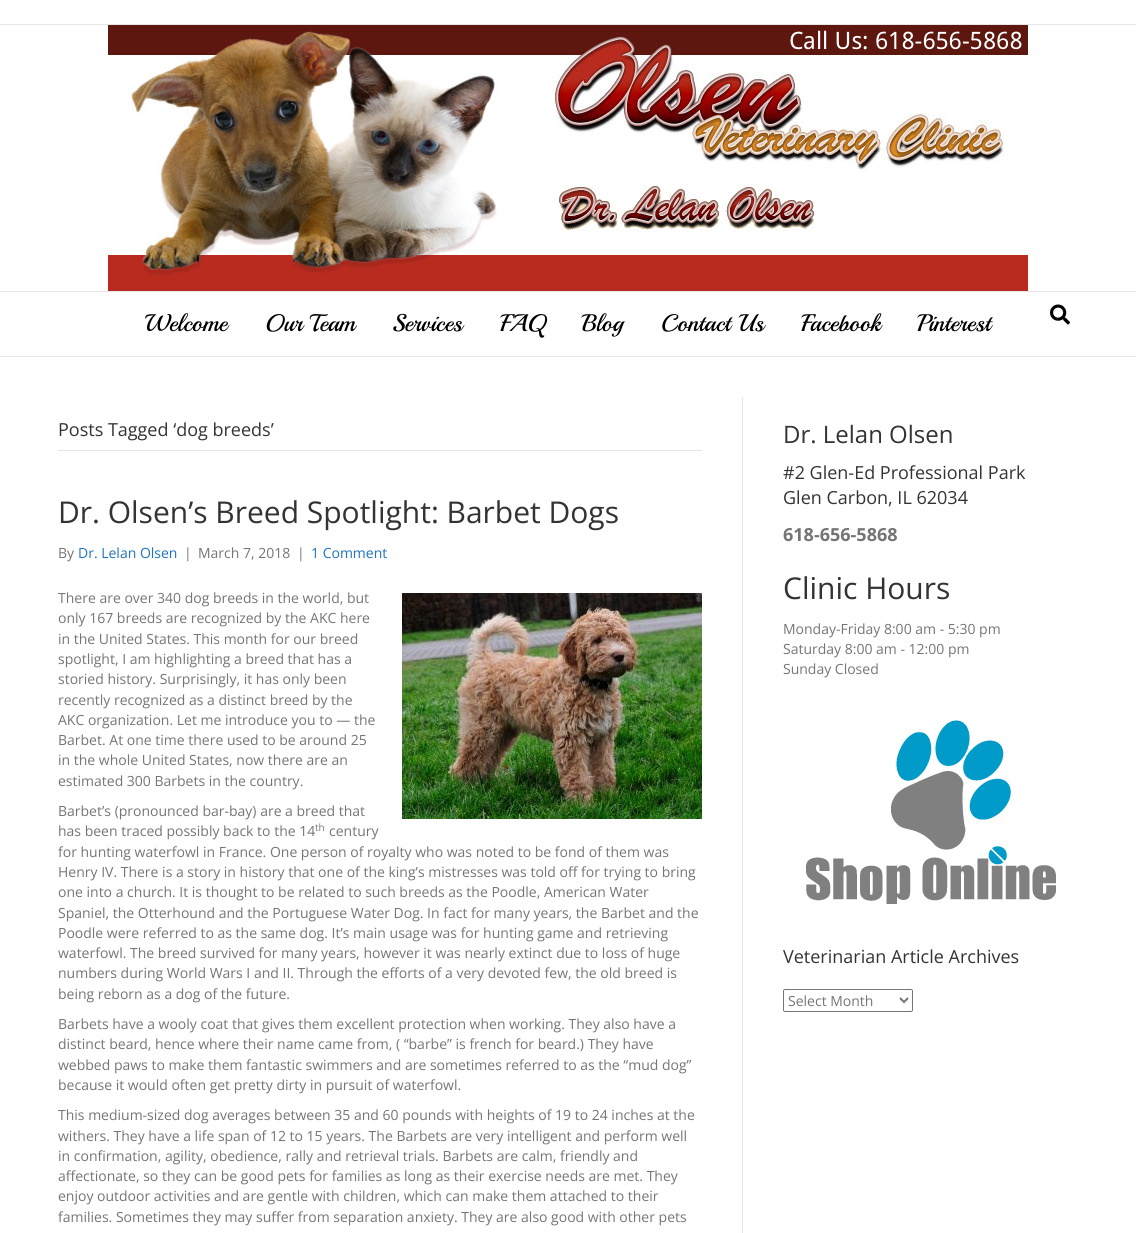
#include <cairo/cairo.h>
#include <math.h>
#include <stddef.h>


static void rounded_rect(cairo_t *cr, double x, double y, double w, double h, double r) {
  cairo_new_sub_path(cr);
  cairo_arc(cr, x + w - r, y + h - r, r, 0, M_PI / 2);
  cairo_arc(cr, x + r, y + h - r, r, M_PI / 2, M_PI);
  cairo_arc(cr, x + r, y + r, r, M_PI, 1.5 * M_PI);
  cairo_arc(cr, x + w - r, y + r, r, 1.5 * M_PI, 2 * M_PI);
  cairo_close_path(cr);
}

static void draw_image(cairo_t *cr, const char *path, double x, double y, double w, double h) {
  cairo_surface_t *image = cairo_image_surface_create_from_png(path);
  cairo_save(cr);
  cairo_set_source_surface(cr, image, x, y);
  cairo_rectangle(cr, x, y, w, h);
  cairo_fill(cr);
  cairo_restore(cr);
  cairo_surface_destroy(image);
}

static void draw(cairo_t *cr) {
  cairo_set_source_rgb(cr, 1, 1, 1);
  cairo_paint(cr);
  cairo_set_source_rgb(cr, 230 / 255.0, 230 / 255.0, 230 / 255.0);
  cairo_rectangle(cr, 0, 24, 1136, 1);
  cairo_fill(cr);
  draw_image(cr, "images/1.png", 108, 25, 920, 266);
  cairo_rectangle(cr, 0, 291, 1136, 1);
  cairo_fill(cr);
  cairo_rectangle(cr, 0, 356, 1136, 1);
  cairo_fill(cr);
  draw_image(cr, "images/2.png", 1050, 304, 20, 21);
  cairo_rectangle(cr, 742, 397, 1, 836);
  cairo_fill(cr);
  cairo_rectangle(cr, 58, 450, 644, 1);
  cairo_fill(cr);
  draw_image(cr, "images/3.png", 402, 593, 300, 226);
  draw_image(cr, "images/4.png", 806, 720, 250, 184);
  rounded_rect(cr, 783.5, 989.5, 129, 22, 1.5);
  cairo_set_source_rgb(cr, 118 / 255.0, 118 / 255.0, 118 / 255.0);
  cairo_set_line_width(cr, 1);
  cairo_stroke(cr);
  cairo_new_path(cr);
  cairo_move_to(cr, 900, 998);
  cairo_line_to(cr, 904, 1002);
  cairo_line_to(cr, 908, 998);
  cairo_set_source_rgb(cr, 117 / 255.0, 117 / 255.0, 117 / 255.0);
  cairo_set_line_width(cr, 2);
  cairo_stroke(cr);
  cairo_select_font_face(cr, "Playball", CAIRO_FONT_SLANT_NORMAL, CAIRO_FONT_WEIGHT_NORMAL);
  cairo_set_font_size(cr, 24);
  cairo_set_source_rgb(cr, 0, 0, 0);
  cairo_move_to(cr, 145, 331);
  cairo_show_text(cr, "Welcome");
  cairo_move_to(cr, 265, 331);
  cairo_show_text(cr, "Our Team");
  cairo_move_to(cr, 392, 331);
  cairo_show_text(cr, "Services");
  cairo_move_to(cr, 500, 331);
  cairo_show_text(cr, "FAQ");
  cairo_move_to(cr, 582, 331);
  cairo_show_text(cr, "Blog");
  cairo_move_to(cr, 661, 331);
  cairo_show_text(cr, "Contact Us");
  cairo_move_to(cr, 801, 331);
  cairo_show_text(cr, "Facebook");
  cairo_move_to(cr, 917, 331);
  cairo_show_text(cr, "Pinterest");
  cairo_select_font_face(cr, "Open Sans", CAIRO_FONT_SLANT_NORMAL, CAIRO_FONT_WEIGHT_NORMAL);
  cairo_set_font_size(cr, 18);
  cairo_set_source_rgb(cr, 51 / 255.0, 51 / 255.0, 51 / 255.0);
  cairo_move_to(cr, 58, 436);
  cairo_show_text(cr, "Posts Tagged ‘dog breeds’");
  cairo_set_font_size(cr, 30);
  cairo_move_to(cr, 58, 523);
  cairo_show_text(cr, "Dr. Olsen’s Breed Spotlight: Barbet Dogs");
  cairo_set_font_size(cr, 14);
  cairo_set_source_rgb(cr, 117 / 255.0, 117 / 255.0, 117 / 255.0);
  cairo_move_to(cr, 58, 558);
  cairo_show_text(cr, "By");
  cairo_set_source_rgb(cr, 30 / 255.0, 115 / 255.0, 190 / 255.0);
  cairo_move_to(cr, 78, 558);
  cairo_show_text(cr, "Dr. Lelan Olsen");
  cairo_set_source_rgb(cr, 117 / 255.0, 117 / 255.0, 117 / 255.0);
  cairo_move_to(cr, 184, 558);
  cairo_show_text(cr, "|");
  cairo_move_to(cr, 198, 558);
  cairo_show_text(cr, "March 7, 2018");
  cairo_move_to(cr, 297, 558);
  cairo_show_text(cr, "|");
  cairo_set_source_rgb(cr, 30 / 255.0, 115 / 255.0, 190 / 255.0);
  cairo_move_to(cr, 311, 558);
  cairo_show_text(cr, "1 Comment");
  cairo_set_source_rgb(cr, 117 / 255.0, 117 / 255.0, 117 / 255.0);
  cairo_move_to(cr, 58, 603);
  cairo_show_text(cr, "There are over 340 dog breeds in the world, but");
  cairo_move_to(cr, 58, 623);
  cairo_show_text(cr, "only 167 breeds are recognized by the AKC here");
  cairo_move_to(cr, 58, 644);
  cairo_show_text(cr, "in the United States. This month for our breed");
  cairo_move_to(cr, 58, 664);
  cairo_show_text(cr, "spotlight, I am highlighting a breed that has a");
  cairo_move_to(cr, 58, 684);
  cairo_show_text(cr, "storied history. Surprisingly, it has only been");
  cairo_move_to(cr, 58, 705);
  cairo_show_text(cr, "recently recognized as a distinct breed by the");
  cairo_move_to(cr, 58, 725);
  cairo_show_text(cr, "AKC organization. Let me introduce you to — the");
  cairo_move_to(cr, 58, 745);
  cairo_show_text(cr, "Barbet. At one time there used to be around 25");
  cairo_move_to(cr, 58, 765);
  cairo_show_text(cr, "in the whole United States, now there are an");
  cairo_move_to(cr, 58, 786);
  cairo_show_text(cr, "estimated 300 Barbets in the country.");
  cairo_move_to(cr, 58, 816);
  cairo_show_text(cr, "Barbet’s (pronounced bar-bay) are a breed that");
  cairo_move_to(cr, 58, 836);
  cairo_show_text(cr, "has been traced possibly back to the 14");
  cairo_set_font_size(cr, 10);
  cairo_move_to(cr, 315, 831);
  cairo_show_text(cr, "th");
  cairo_set_font_size(cr, 14);
  cairo_move_to(cr, 329, 836);
  cairo_show_text(cr, "century");
  cairo_move_to(cr, 58, 857);
  cairo_show_text(cr, "for hunting waterfowl in France. One person of royalty who was noted to be fond of them was");
  cairo_move_to(cr, 58, 877);
  cairo_show_text(cr, "Henry IV. There is a story in history that one of the king’s mistresses was told off for trying to bring");
  cairo_move_to(cr, 58, 897);
  cairo_show_text(cr, "one into a church. It is thought to be related to such breeds as the Poodle, American Water");
  cairo_move_to(cr, 58, 918);
  cairo_show_text(cr, "Spaniel, the Otterhound and the Portuguese Water Dog. In fact for many years, the Barbet and the");
  cairo_move_to(cr, 58, 938);
  cairo_show_text(cr, "Poodle were referred to as the same dog. It’s main usage was for hunting game and retrieving");
  cairo_move_to(cr, 58, 958);
  cairo_show_text(cr, "waterfowl. The breed survived for many years, however it was nearly extinct due to loss of huge");
  cairo_move_to(cr, 58, 978);
  cairo_show_text(cr, "numbers during World Wars I and II. Through the efforts of a very devoted few, the old breed is");
  cairo_move_to(cr, 58, 999);
  cairo_show_text(cr, "being reborn as a dog of the future.");
  cairo_move_to(cr, 58, 1029);
  cairo_show_text(cr, "Barbets have a wooly coat that gives them excellent protection when working. They also have a");
  cairo_move_to(cr, 58, 1049);
  cairo_show_text(cr, "distinct beard, hence where their name came from, ( “barbe” is french for beard.) They have");
  cairo_move_to(cr, 58, 1070);
  cairo_show_text(cr, "webbed paws to make them fantastic swimmers and are sometimes referred to as the “mud dog”");
  cairo_move_to(cr, 58, 1090);
  cairo_show_text(cr, "because it would often get pretty dirty in pursuit of waterfowl.");
  cairo_move_to(cr, 58, 1120);
  cairo_show_text(cr, "This medium-sized dog averages between 35 and 60 pounds with heights of 19 to 24 inches at the");
  cairo_move_to(cr, 58, 1141);
  cairo_show_text(cr, "withers. They have a life span of 12 to 15 years. The Barbets are very intelligent and perform well");
  cairo_move_to(cr, 58, 1161);
  cairo_show_text(cr, "in confirmation, agility, obedience, rally and retrieval trials. Barbets are calm, friendly and");
  cairo_move_to(cr, 58, 1181);
  cairo_show_text(cr, "affectionate, so they can be good pets for families as long as their exercise needs are met. They");
  cairo_move_to(cr, 58, 1201);
  cairo_show_text(cr, "enjoy outdoor activities and are gentle with children, which can make them attached to their");
  cairo_move_to(cr, 58, 1222);
  cairo_show_text(cr, "families. Sometimes they may suffer from separation anxiety. They are also good with other pets");
  cairo_set_font_size(cr, 24);
  cairo_set_source_rgb(cr, 51 / 255.0, 51 / 255.0, 51 / 255.0);
  cairo_move_to(cr, 783, 443);
  cairo_show_text(cr, "Dr. Lelan Olsen");
  cairo_set_font_size(cr, 18);
  cairo_move_to(cr, 783, 479);
  cairo_show_text(cr, "#2 Glen-Ed Professional Park");
  cairo_move_to(cr, 783, 504);
  cairo_show_text(cr, "Glen Carbon, IL 62034");
  cairo_select_font_face(cr, "Open Sans", CAIRO_FONT_SLANT_NORMAL, CAIRO_FONT_WEIGHT_BOLD);
  cairo_set_source_rgb(cr, 117 / 255.0, 117 / 255.0, 117 / 255.0);
  cairo_move_to(cr, 783, 541);
  cairo_show_text(cr, "618-656-5868");
  cairo_select_font_face(cr, "Open Sans", CAIRO_FONT_SLANT_NORMAL, CAIRO_FONT_WEIGHT_NORMAL);
  cairo_set_font_size(cr, 30);
  cairo_set_source_rgb(cr, 51 / 255.0, 51 / 255.0, 51 / 255.0);
  cairo_move_to(cr, 783, 599);
  cairo_show_text(cr, "Clinic Hours");
  cairo_set_font_size(cr, 14);
  cairo_set_source_rgb(cr, 117 / 255.0, 117 / 255.0, 117 / 255.0);
  cairo_move_to(cr, 783, 634);
  cairo_show_text(cr, "Monday-Friday 8:00 am - 5:30 pm");
  cairo_move_to(cr, 783, 654);
  cairo_show_text(cr, "Saturday 8:00 am - 12:00 pm");
  cairo_move_to(cr, 783, 674);
  cairo_show_text(cr, "Sunday Closed");
  cairo_set_font_size(cr, 18);
  cairo_set_source_rgb(cr, 51 / 255.0, 51 / 255.0, 51 / 255.0);
  cairo_move_to(cr, 783, 963);
  cairo_show_text(cr, "Veterinarian Article Archives");
  cairo_set_font_size(cr, 14);
  cairo_set_source_rgb(cr, 117 / 255.0, 117 / 255.0, 117 / 255.0);
  cairo_move_to(cr, 788, 1006);
  cairo_show_text(cr, "Select Month");
}

int main(void) {
  cairo_surface_t *surface = cairo_image_surface_create(CAIRO_FORMAT_RGB24, 1136, 1233);
  cairo_t *cr = cairo_create(surface);
  cairo_font_options_t *options = cairo_font_options_create();
  cairo_font_options_set_hint_metrics(options, CAIRO_HINT_METRICS_OFF);
  cairo_font_options_set_hint_style(options, CAIRO_HINT_STYLE_NONE);
  cairo_set_font_options(cr, options);
  cairo_set_miter_limit(cr, 4);
  draw(cr);
  cairo_surface_write_to_png(surface, "out.png");
  cairo_font_options_destroy(options);
  cairo_destroy(cr);
  cairo_surface_destroy(surface);
  return 0;
}
